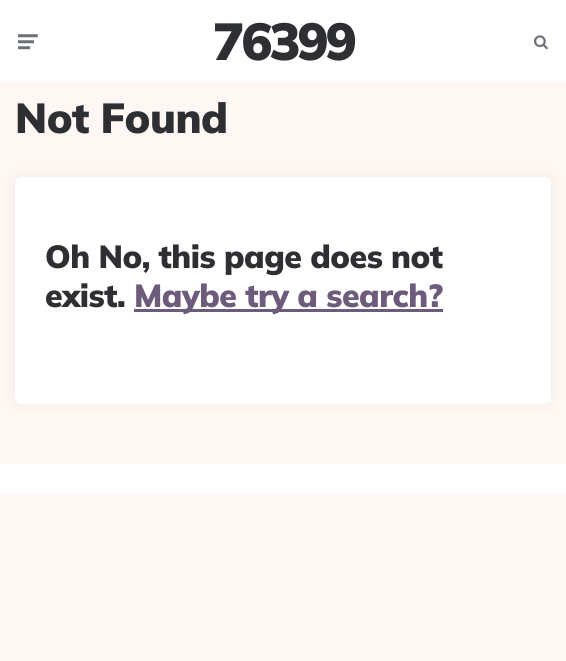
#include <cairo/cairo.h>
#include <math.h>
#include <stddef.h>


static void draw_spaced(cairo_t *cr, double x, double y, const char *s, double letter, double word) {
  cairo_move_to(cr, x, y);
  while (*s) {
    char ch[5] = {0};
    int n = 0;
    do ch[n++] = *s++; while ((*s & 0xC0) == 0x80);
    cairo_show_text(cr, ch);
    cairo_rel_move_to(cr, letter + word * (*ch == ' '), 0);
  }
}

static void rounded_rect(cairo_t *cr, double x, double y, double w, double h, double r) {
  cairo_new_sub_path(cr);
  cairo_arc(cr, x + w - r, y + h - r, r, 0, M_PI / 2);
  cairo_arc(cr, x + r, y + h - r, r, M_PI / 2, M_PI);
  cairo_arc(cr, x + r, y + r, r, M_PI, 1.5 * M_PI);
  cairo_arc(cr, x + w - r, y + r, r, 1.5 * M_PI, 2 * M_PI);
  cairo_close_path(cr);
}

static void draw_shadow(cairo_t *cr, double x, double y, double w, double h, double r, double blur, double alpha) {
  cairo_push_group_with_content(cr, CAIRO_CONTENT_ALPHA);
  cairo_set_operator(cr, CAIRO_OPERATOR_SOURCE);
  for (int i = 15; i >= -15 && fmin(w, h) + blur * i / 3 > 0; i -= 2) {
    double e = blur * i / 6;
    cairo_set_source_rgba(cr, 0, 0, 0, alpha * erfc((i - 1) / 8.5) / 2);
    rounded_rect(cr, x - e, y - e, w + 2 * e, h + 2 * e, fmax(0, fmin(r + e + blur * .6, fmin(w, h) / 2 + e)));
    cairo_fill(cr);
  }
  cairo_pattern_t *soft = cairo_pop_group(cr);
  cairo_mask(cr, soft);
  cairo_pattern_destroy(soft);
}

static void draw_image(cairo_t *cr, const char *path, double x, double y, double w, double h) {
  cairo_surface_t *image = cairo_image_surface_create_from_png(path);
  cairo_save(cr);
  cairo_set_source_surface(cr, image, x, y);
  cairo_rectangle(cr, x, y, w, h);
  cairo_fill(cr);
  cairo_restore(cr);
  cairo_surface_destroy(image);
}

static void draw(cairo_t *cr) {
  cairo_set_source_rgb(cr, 1, 247 / 255.0, 243 / 255.0);
  cairo_paint(cr);
  cairo_set_source_rgb(cr, 1, 1, 1);
  cairo_rectangle(cr, 0, 0, 566, 82);
  cairo_fill(cr);
  draw_image(cr, "images/1.png", 18, 34, 20, 16);
  draw_image(cr, "images/2.png", 534, 35, 14, 15);
  cairo_set_source_rgb(cr, 0, 0, 0);
  draw_shadow(cr, 15, 177, 536, 227, 7, 7.5, 0.05);
  cairo_set_source_rgb(cr, 1, 1, 1);
  rounded_rect(cr, 15, 177, 536, 227, 7);
  cairo_fill(cr);
  cairo_set_source_rgb(cr, 108 / 255.0, 91 / 255.0, 123 / 255.0);
  cairo_rectangle(cr, 134, 309, 309, 3);
  cairo_fill(cr);
  cairo_set_source_rgb(cr, 1, 1, 1);
  cairo_rectangle(cr, 0, 464, 566, 30);
  cairo_fill(cr);
  cairo_select_font_face(cr, "Mulish Black", CAIRO_FONT_SLANT_NORMAL, CAIRO_FONT_WEIGHT_NORMAL);
  cairo_set_font_size(cr, 52);
  cairo_set_source_rgb(cr, 46 / 255.0, 47 / 255.0, 51 / 255.0);
  draw_spaced(cr, 213, 60, "76399", -3, 0);
  cairo_set_font_size(cr, 42);
  draw_spaced(cr, 15, 133, "Not Found", -0.5, 0);
  cairo_set_font_size(cr, 32);
  draw_spaced(cr, 45, 268, "Oh No, this page does not", -0.5, 0);
  draw_spaced(cr, 45, 307, "exist.", -0.5, 0);
  cairo_set_source_rgb(cr, 108 / 255.0, 91 / 255.0, 123 / 255.0);
  draw_spaced(cr, 134, 307, "Maybe try a search?", -0.5, 0);
}

int main(void) {
  cairo_surface_t *surface = cairo_image_surface_create(CAIRO_FORMAT_RGB24, 566, 661);
  cairo_t *cr = cairo_create(surface);
  cairo_font_options_t *options = cairo_font_options_create();
  cairo_font_options_set_hint_metrics(options, CAIRO_HINT_METRICS_OFF);
  cairo_font_options_set_hint_style(options, CAIRO_HINT_STYLE_NONE);
  cairo_set_font_options(cr, options);
  cairo_set_miter_limit(cr, 4);
  draw(cr);
  cairo_surface_write_to_png(surface, "out.png");
  cairo_font_options_destroy(options);
  cairo_destroy(cr);
  cairo_surface_destroy(surface);
  return 0;
}
